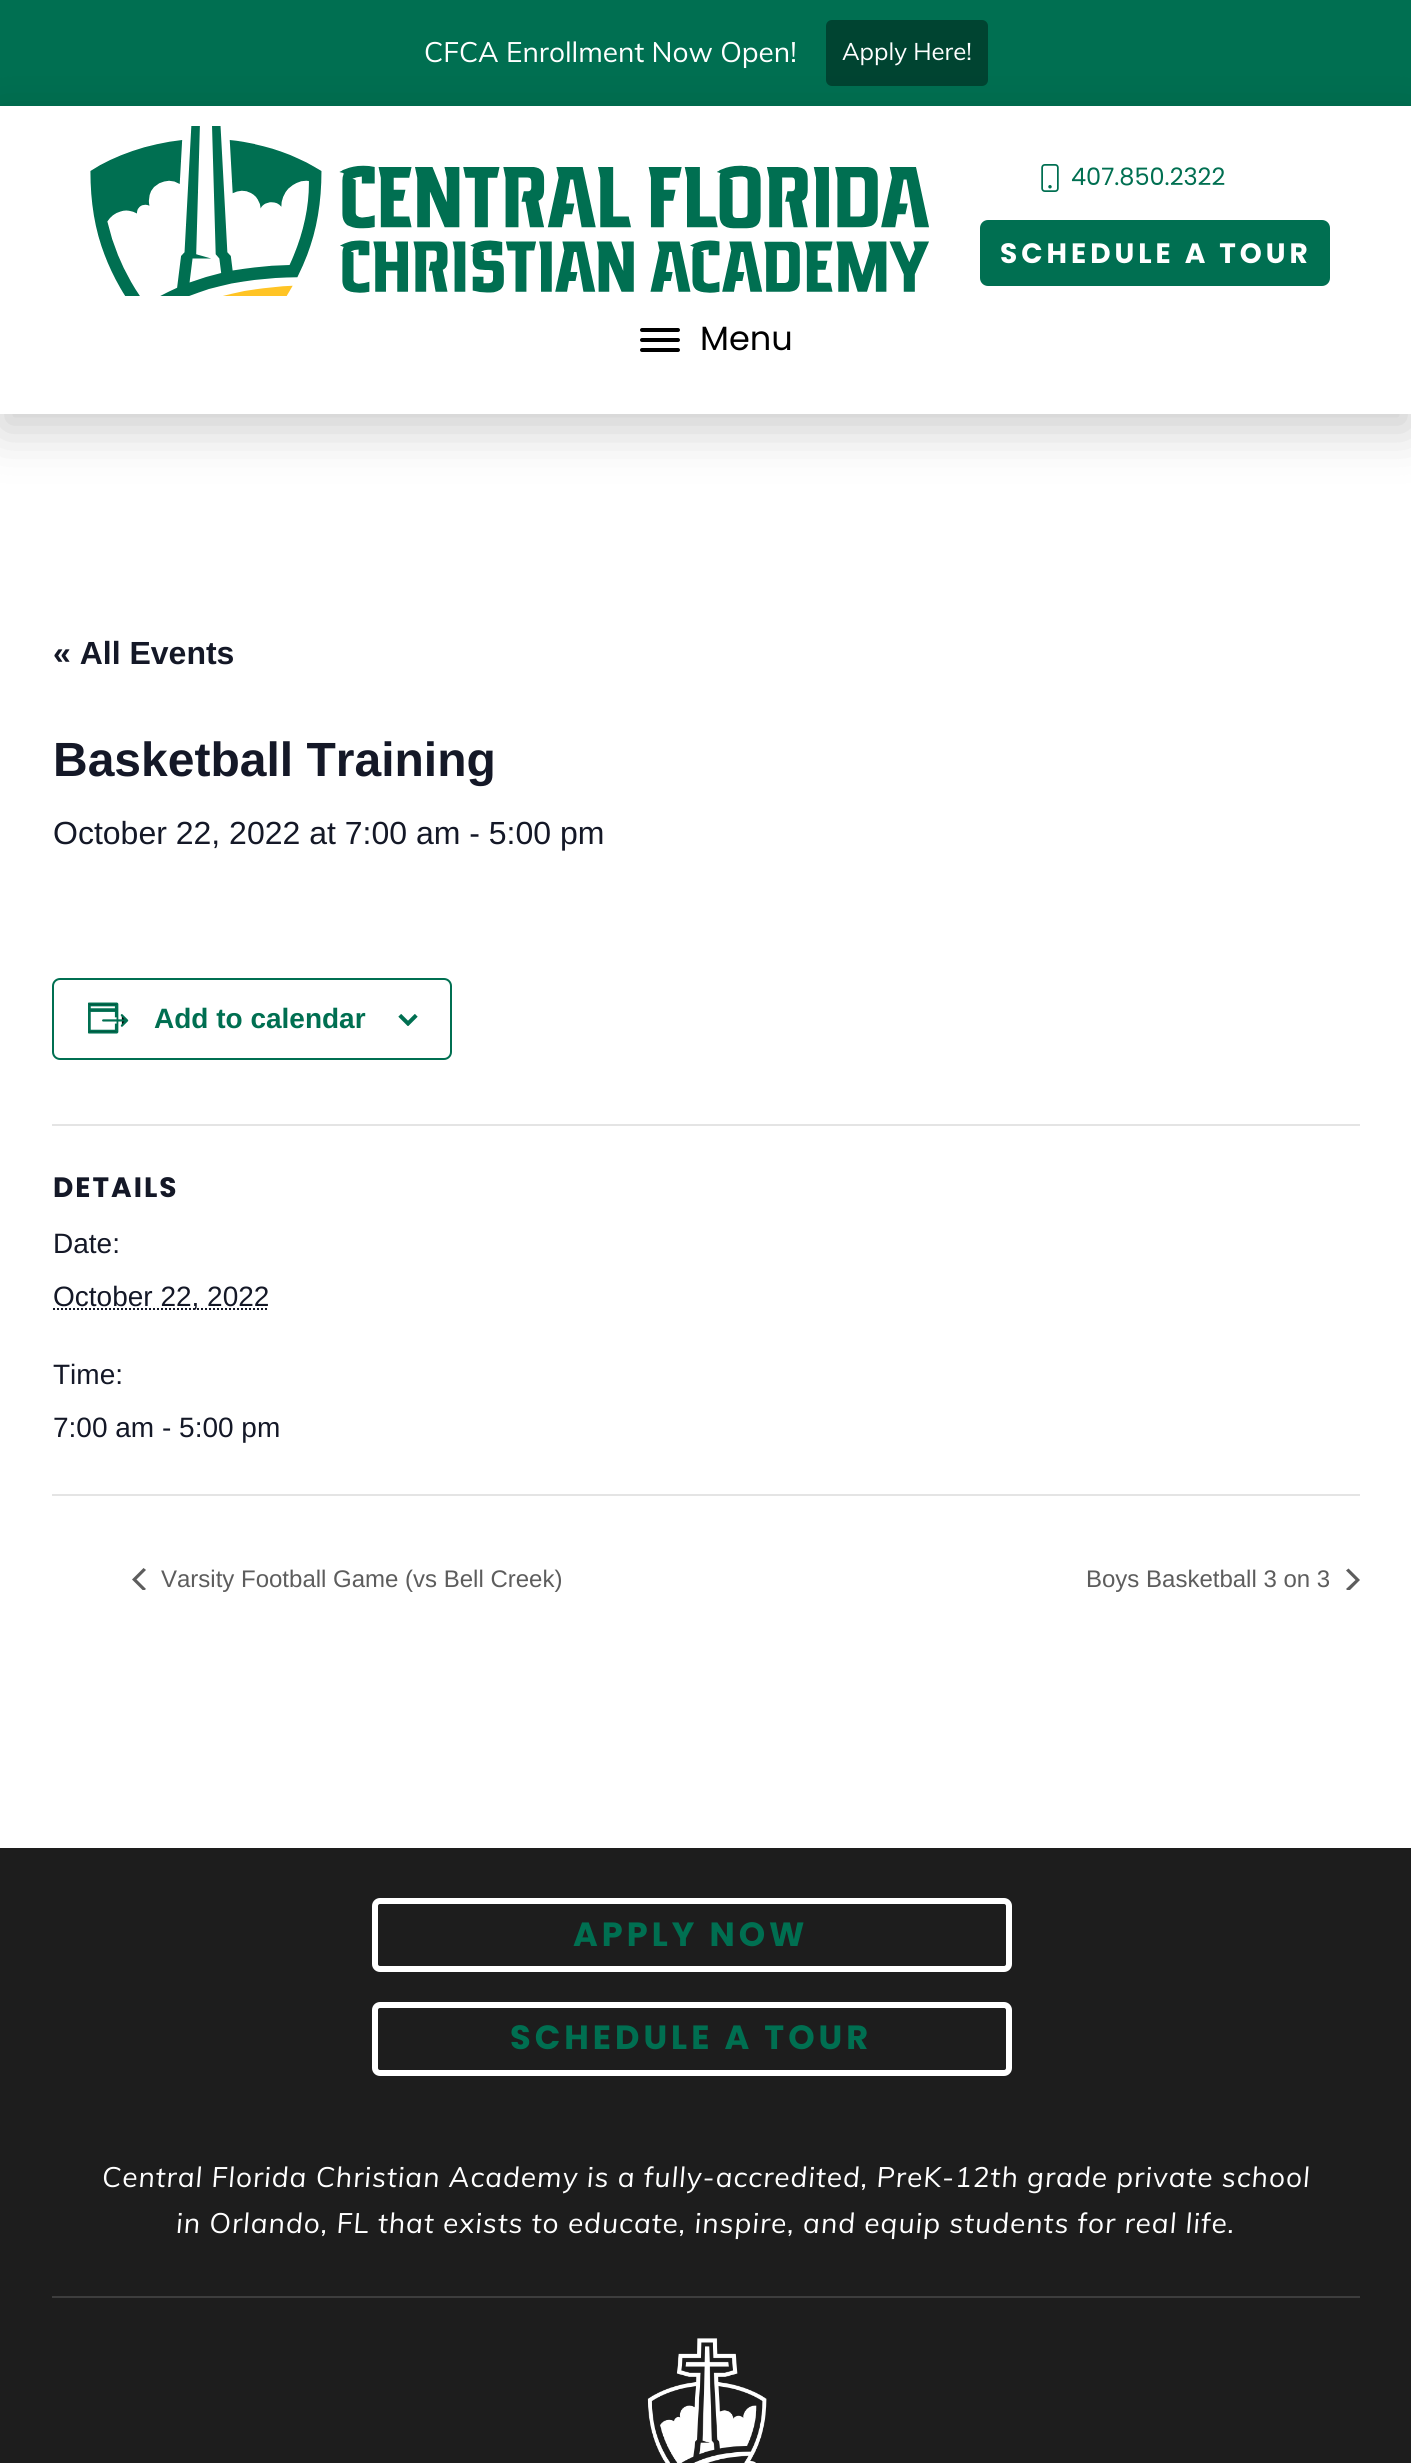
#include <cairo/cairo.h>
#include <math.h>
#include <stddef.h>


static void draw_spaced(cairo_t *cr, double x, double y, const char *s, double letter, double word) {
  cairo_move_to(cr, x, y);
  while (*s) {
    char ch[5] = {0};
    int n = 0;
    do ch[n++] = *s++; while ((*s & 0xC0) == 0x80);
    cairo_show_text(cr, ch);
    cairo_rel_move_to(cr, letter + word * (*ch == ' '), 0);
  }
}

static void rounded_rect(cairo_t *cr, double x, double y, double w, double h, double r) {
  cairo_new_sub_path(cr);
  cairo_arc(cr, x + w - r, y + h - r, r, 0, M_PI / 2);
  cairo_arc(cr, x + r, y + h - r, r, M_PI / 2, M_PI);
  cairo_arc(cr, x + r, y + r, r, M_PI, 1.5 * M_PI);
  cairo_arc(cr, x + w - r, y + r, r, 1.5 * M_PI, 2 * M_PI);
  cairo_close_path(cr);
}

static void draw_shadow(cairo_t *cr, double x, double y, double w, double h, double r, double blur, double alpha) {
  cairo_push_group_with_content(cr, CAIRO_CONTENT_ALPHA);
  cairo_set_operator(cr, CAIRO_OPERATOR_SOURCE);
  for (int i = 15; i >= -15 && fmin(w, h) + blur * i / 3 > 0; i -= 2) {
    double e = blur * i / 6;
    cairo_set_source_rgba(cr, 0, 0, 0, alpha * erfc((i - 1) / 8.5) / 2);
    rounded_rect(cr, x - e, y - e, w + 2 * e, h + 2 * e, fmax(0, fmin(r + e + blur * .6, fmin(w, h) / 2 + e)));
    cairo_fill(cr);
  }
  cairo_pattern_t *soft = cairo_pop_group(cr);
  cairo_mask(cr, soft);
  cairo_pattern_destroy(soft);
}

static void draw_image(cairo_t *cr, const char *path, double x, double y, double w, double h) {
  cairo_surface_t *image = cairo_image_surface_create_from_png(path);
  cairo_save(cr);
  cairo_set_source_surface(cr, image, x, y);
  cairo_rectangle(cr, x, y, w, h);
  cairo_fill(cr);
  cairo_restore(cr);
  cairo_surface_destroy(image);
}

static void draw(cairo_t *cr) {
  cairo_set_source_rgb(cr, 1, 1, 1);
  cairo_paint(cr);
  cairo_set_source_rgb(cr, 0, 111 / 255.0, 81 / 255.0);
  cairo_rectangle(cr, 0, 0, 1411, 106);
  cairo_fill(cr);
  cairo_set_source_rgb(cr, 0, 68 / 255.0, 49 / 255.0);
  rounded_rect(cr, 826, 20, 162, 66, 6);
  cairo_fill(cr);
  cairo_save(cr);
  cairo_set_fill_rule(cr, CAIRO_FILL_RULE_EVEN_ODD);
  cairo_new_path(cr);
  cairo_move_to(cr, 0, 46);
  cairo_line_to(cr, 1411, 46);
  cairo_line_to(cr, 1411, 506);
  cairo_line_to(cr, 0, 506);
  cairo_close_path(cr);
  cairo_move_to(cr, 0, 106);
  cairo_line_to(cr, 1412, 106);
  cairo_line_to(cr, 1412, 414);
  cairo_line_to(cr, 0, 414);
  cairo_close_path(cr);
  cairo_clip(cr);
  cairo_set_source_rgb(cr, 0, 0, 0);
  draw_shadow(cr, 0, 122, 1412, 308, 0, 25, 0.2);
  cairo_restore(cr);
  draw_image(cr, "images/1.png", 90, 126, 839, 170);
  draw_image(cr, "images/2.png", 1041, 164, 18, 28);
  cairo_set_source_rgb(cr, 0, 111 / 255.0, 81 / 255.0);
  rounded_rect(cr, 981, 221, 348, 64, 7);
  cairo_fill_preserve(cr);
  cairo_stroke(cr);
  cairo_set_source_rgb(cr, 0, 0, 0);
  rounded_rect(cr, 640, 328, 40, 4, 2);
  cairo_fill(cr);
  rounded_rect(cr, 640, 338, 40, 4, 2);
  cairo_fill(cr);
  rounded_rect(cr, 640, 348, 40, 4, 2);
  cairo_fill(cr);
  rounded_rect(cr, 53, 979, 398, 80, 7);
  cairo_set_source_rgb(cr, 0, 111 / 255.0, 81 / 255.0);
  cairo_stroke(cr);
  draw_image(cr, "images/3.png", 88, 1002, 41, 32);
  draw_image(cr, "images/4.png", 398, 1014, 20, 12);
  cairo_set_source_rgb(cr, 228 / 255.0, 228 / 255.0, 228 / 255.0);
  cairo_rectangle(cr, 52, 1124, 1308, 2);
  cairo_fill(cr);
  cairo_new_path(cr);
  cairo_move_to(cr, 53, 1309);
  cairo_line_to(cr, 269, 1309);
  cairo_set_source_rgb(cr, 20 / 255.0, 24 / 255.0, 39 / 255.0);
  cairo_set_dash(cr, (double[]){2, 2}, 2, 0);
  cairo_stroke(cr);
  cairo_set_source_rgb(cr, 228 / 255.0, 228 / 255.0, 228 / 255.0);
  cairo_rectangle(cr, 52, 1494, 1308, 2);
  cairo_fill(cr);
  cairo_save(cr);
  cairo_rectangle(cr, 132, 1568, 14, 22);
  cairo_clip(cr);
  cairo_set_source_rgb(cr, 93 / 255.0, 93 / 255.0, 93 / 255.0);
  cairo_new_path(cr);
  cairo_move_to(cr, 146, 1589);
  cairo_line_to(cr, 143.5, 1591);
  cairo_line_to(cr, 132, 1579.5);
  cairo_line_to(cr, 143.5, 1568);
  cairo_line_to(cr, 146, 1570);
  cairo_line_to(cr, 136.5, 1579.5);
  cairo_close_path(cr);
  cairo_fill(cr);
  cairo_restore(cr);
  cairo_save(cr);
  cairo_rectangle(cr, 1346, 1568, 14, 22);
  cairo_clip(cr);
  cairo_set_source_rgb(cr, 93 / 255.0, 93 / 255.0, 93 / 255.0);
  cairo_new_path(cr);
  cairo_move_to(cr, 1346, 1570.5);
  cairo_line_to(cr, 1348.5, 1568.5);
  cairo_line_to(cr, 1360, 1580);
  cairo_line_to(cr, 1348.5, 1591.5);
  cairo_line_to(cr, 1346, 1589);
  cairo_line_to(cr, 1355.5, 1580);
  cairo_close_path(cr);
  cairo_fill(cr);
  cairo_restore(cr);
  cairo_set_source_rgb(cr, 29 / 255.0, 29 / 255.0, 29 / 255.0);
  cairo_rectangle(cr, 0, 1848, 1411, 615);
  cairo_fill(cr);
  rounded_rect(cr, 375, 1901, 634, 68, 5);
  cairo_set_source_rgb(cr, 1, 1, 1);
  cairo_set_line_width(cr, 6);
  cairo_set_dash(cr, NULL, 0, 0);
  cairo_stroke(cr);
  rounded_rect(cr, 375, 2005, 634, 68, 5);
  cairo_stroke(cr);
  cairo_set_source_rgb(cr, 61 / 255.0, 61 / 255.0, 61 / 255.0);
  cairo_rectangle(cr, 52, 2296, 1308, 2);
  cairo_fill(cr);
  draw_image(cr, "images/5.png", 647, 2338, 120, 125);
  cairo_select_font_face(cr, "Muli", CAIRO_FONT_SLANT_NORMAL, CAIRO_FONT_WEIGHT_NORMAL);
  cairo_set_font_size(cr, 28);
  cairo_set_source_rgb(cr, 1, 1, 1);
  cairo_move_to(cr, 424, 62);
  cairo_show_text(cr, "CFCA Enrollment Now Open!");
  cairo_set_font_size(cr, 24);
  cairo_move_to(cr, 842, 60);
  cairo_show_text(cr, "Apply Here!");
  cairo_select_font_face(cr, "Poppins", CAIRO_FONT_SLANT_NORMAL, CAIRO_FONT_WEIGHT_NORMAL);
  cairo_set_source_rgb(cr, 0, 111 / 255.0, 81 / 255.0);
  cairo_move_to(cr, 1071, 185);
  cairo_show_text(cr, "407.850.2322");
  cairo_select_font_face(cr, "Poppins", CAIRO_FONT_SLANT_NORMAL, CAIRO_FONT_WEIGHT_BOLD);
  cairo_set_font_size(cr, 28);
  cairo_set_source_rgb(cr, 1, 1, 1);
  draw_spaced(cr, 1000, 263, "SCHEDULE A TOUR", 4, 0);
  cairo_select_font_face(cr, "Poppins", CAIRO_FONT_SLANT_NORMAL, CAIRO_FONT_WEIGHT_NORMAL);
  cairo_set_font_size(cr, 33.6);
  cairo_set_source_rgb(cr, 0, 0, 0);
  cairo_move_to(cr, 700, 350);
  cairo_show_text(cr, "Menu");
  cairo_select_font_face(cr, "Liberation Sans", CAIRO_FONT_SLANT_NORMAL, CAIRO_FONT_WEIGHT_BOLD);
  cairo_set_font_size(cr, 32);
  cairo_set_source_rgb(cr, 20 / 255.0, 24 / 255.0, 39 / 255.0);
  cairo_move_to(cr, 53, 664);
  cairo_show_text(cr, "« All Events");
  cairo_set_font_size(cr, 48);
  cairo_move_to(cr, 53, 776);
  cairo_show_text(cr, "Basketball Training");
  cairo_select_font_face(cr, "Liberation Sans", CAIRO_FONT_SLANT_NORMAL, CAIRO_FONT_WEIGHT_NORMAL);
  cairo_set_font_size(cr, 32);
  cairo_move_to(cr, 53, 844);
  cairo_show_text(cr, "October 22, 2022 at 7:00 am - 5:00 pm");
  cairo_select_font_face(cr, "Liberation Sans", CAIRO_FONT_SLANT_NORMAL, CAIRO_FONT_WEIGHT_BOLD);
  cairo_set_font_size(cr, 28);
  cairo_set_source_rgb(cr, 0, 111 / 255.0, 81 / 255.0);
  cairo_move_to(cr, 154, 1028);
  cairo_show_text(cr, "Add to calendar");
  cairo_select_font_face(cr, "Poppins", CAIRO_FONT_SLANT_NORMAL, CAIRO_FONT_WEIGHT_BOLD);
  cairo_set_source_rgb(cr, 20 / 255.0, 24 / 255.0, 39 / 255.0);
  draw_spaced(cr, 53, 1197, "DETAILS", 2, 0);
  cairo_select_font_face(cr, "Liberation Sans", CAIRO_FONT_SLANT_NORMAL, CAIRO_FONT_WEIGHT_NORMAL);
  cairo_move_to(cr, 53, 1253);
  cairo_show_text(cr, "Date:");
  cairo_move_to(cr, 53, 1306);
  cairo_show_text(cr, "October 22, 2022");
  cairo_move_to(cr, 53, 1384);
  cairo_show_text(cr, "Time:");
  cairo_move_to(cr, 53, 1437);
  cairo_show_text(cr, "7:00 am - 5:00 pm");
  cairo_set_font_size(cr, 24);
  cairo_set_source_rgb(cr, 93 / 255.0, 93 / 255.0, 93 / 255.0);
  cairo_move_to(cr, 161, 1587);
  cairo_show_text(cr, "Varsity Football Game (vs Bell Creek)");
  cairo_move_to(cr, 1086, 1587);
  cairo_show_text(cr, "Boys Basketball 3 on 3");
  cairo_select_font_face(cr, "Poppins", CAIRO_FONT_SLANT_NORMAL, CAIRO_FONT_WEIGHT_BOLD);
  cairo_set_font_size(cr, 33.6);
  cairo_set_source_rgb(cr, 0, 111 / 255.0, 81 / 255.0);
  draw_spaced(cr, 573, 1946, "APPLY NOW", 4, 0);
  draw_spaced(cr, 510, 2049, "SCHEDULE A TOUR", 4, 0);
  cairo_select_font_face(cr, "Muli", CAIRO_FONT_SLANT_ITALIC, CAIRO_FONT_WEIGHT_NORMAL);
  cairo_set_font_size(cr, 28);
  cairo_set_source_rgb(cr, 1, 1, 1);
  draw_spaced(cr, 102, 2187, "Central Florida Christian Academy is a fully-accredited, PreK-12th grade private school", 1, 0);
  draw_spaced(cr, 176, 2233, "in Orlando, FL that exists to educate, inspire, and equip students for real life.", 1, 0);
}

int main(void) {
  cairo_surface_t *surface = cairo_image_surface_create(CAIRO_FORMAT_RGB24, 1411, 2463);
  cairo_t *cr = cairo_create(surface);
  cairo_font_options_t *options = cairo_font_options_create();
  cairo_font_options_set_hint_metrics(options, CAIRO_HINT_METRICS_OFF);
  cairo_font_options_set_hint_style(options, CAIRO_HINT_STYLE_NONE);
  cairo_set_font_options(cr, options);
  cairo_set_miter_limit(cr, 4);
  draw(cr);
  cairo_surface_write_to_png(surface, "out.png");
  cairo_font_options_destroy(options);
  cairo_destroy(cr);
  cairo_surface_destroy(surface);
  return 0;
}
